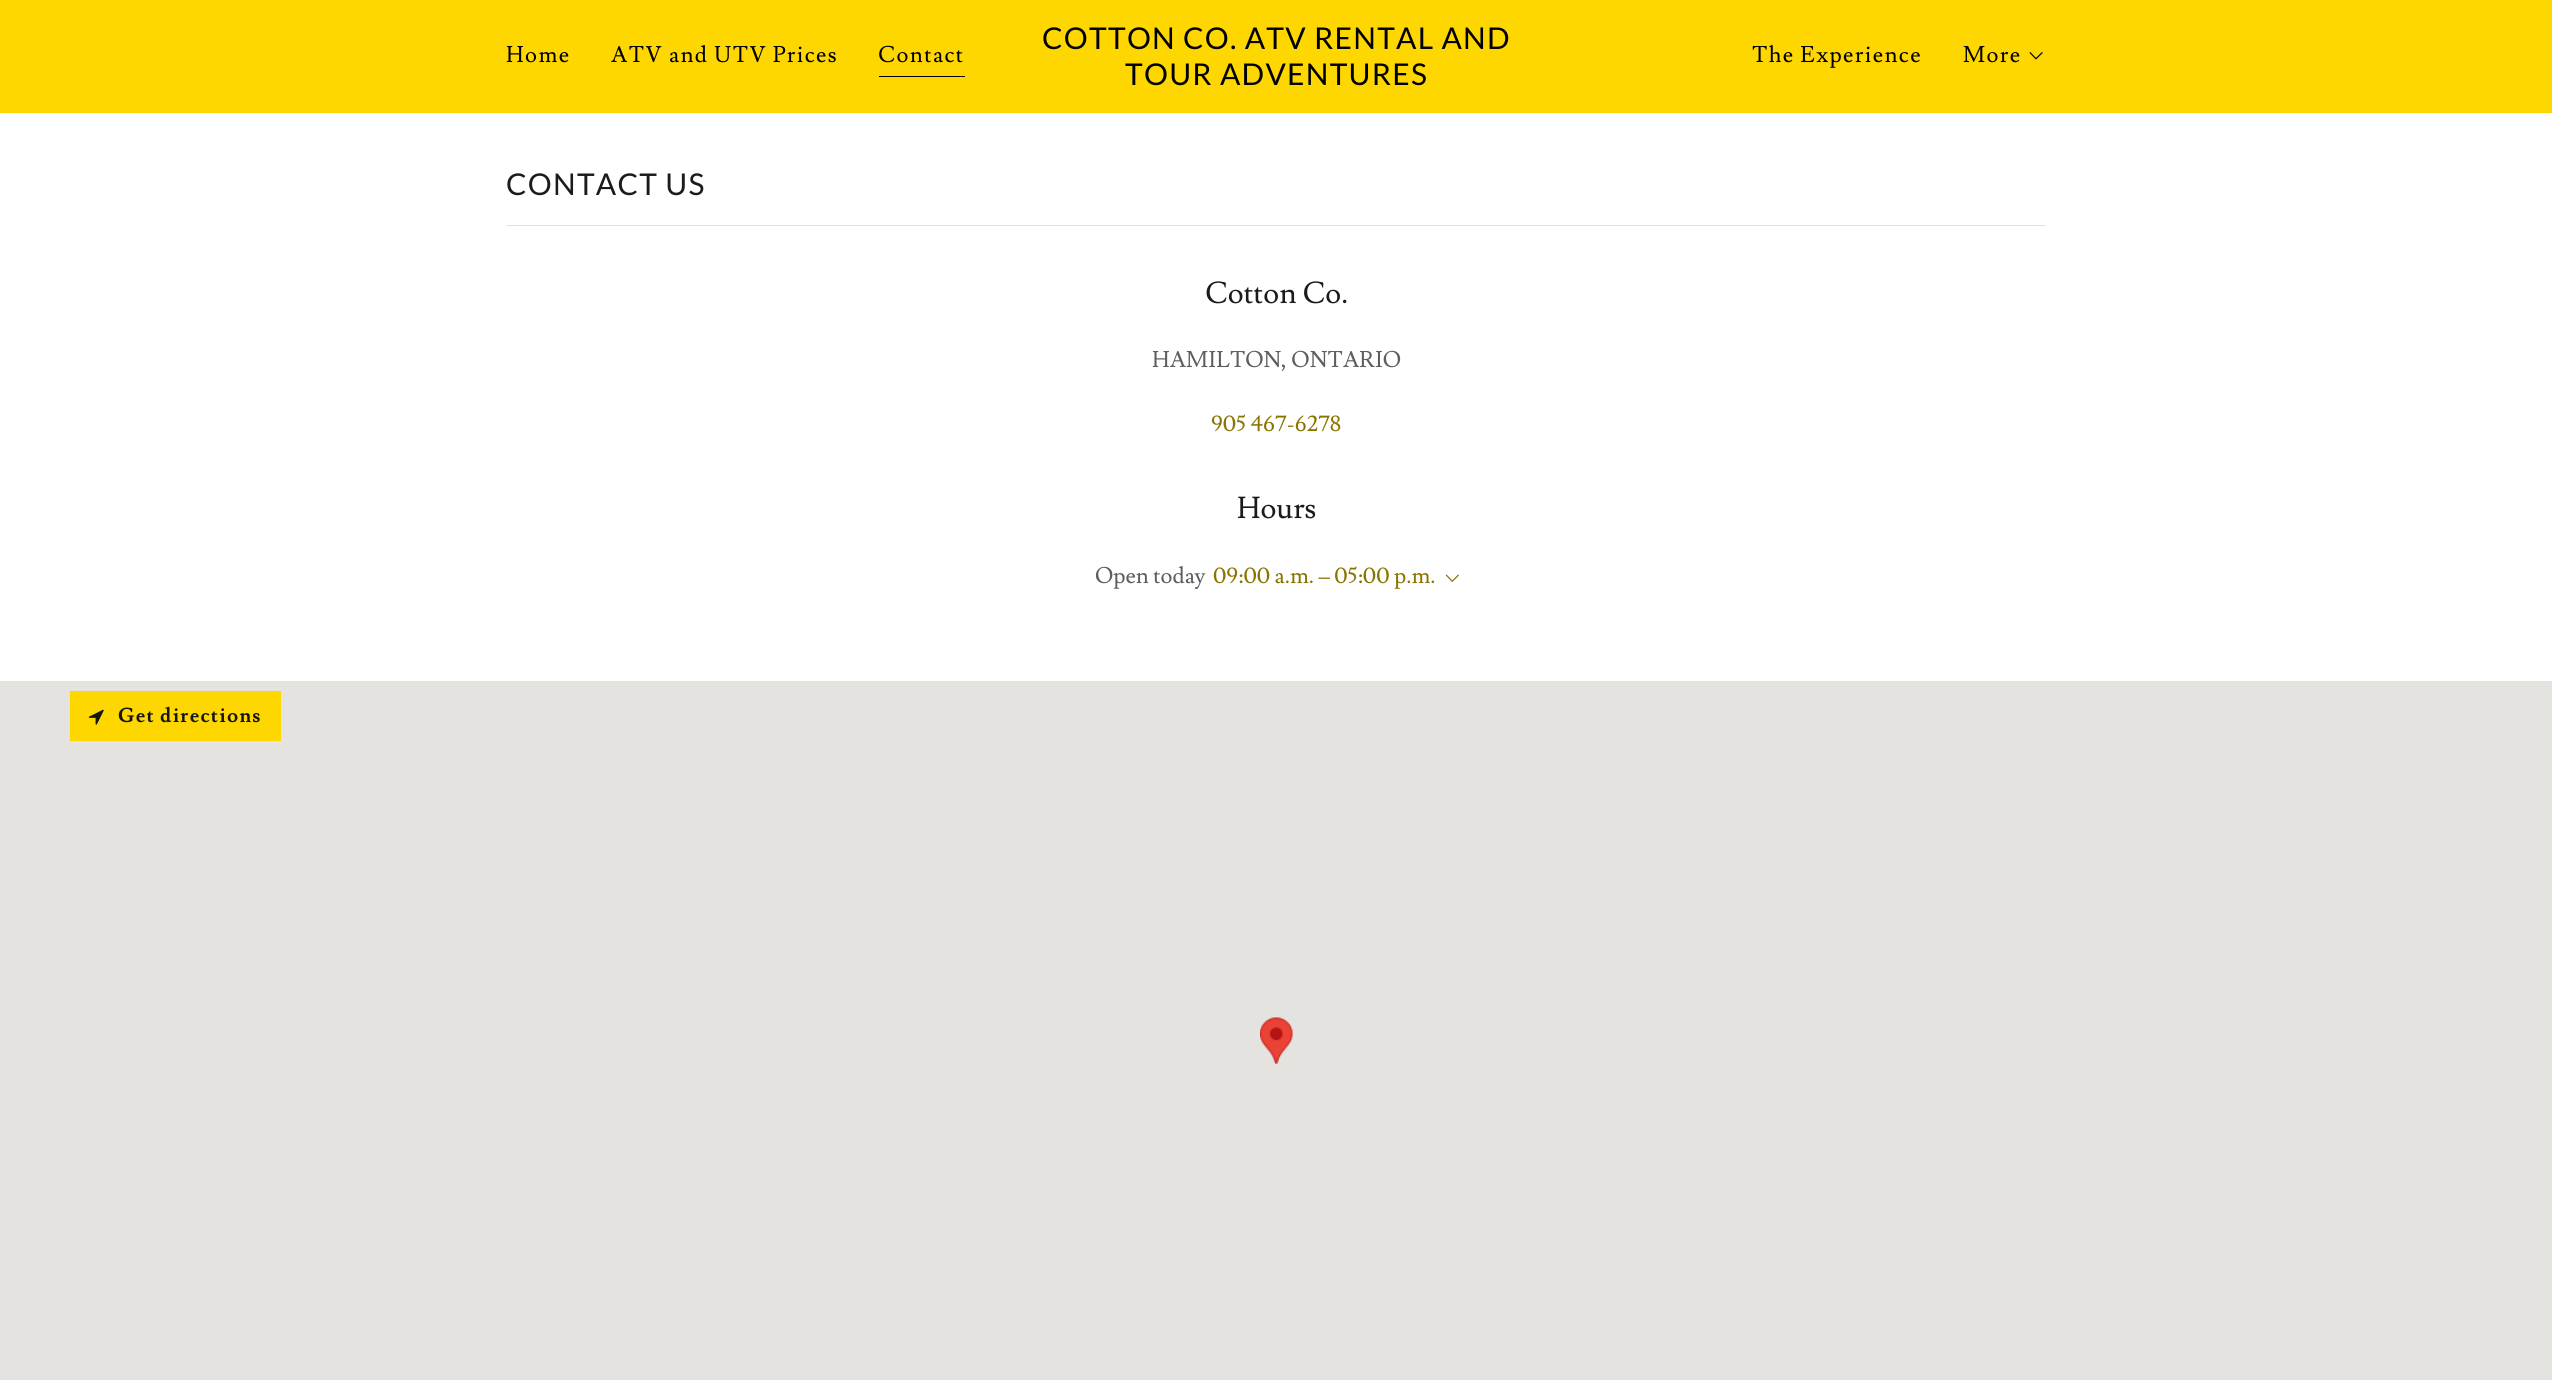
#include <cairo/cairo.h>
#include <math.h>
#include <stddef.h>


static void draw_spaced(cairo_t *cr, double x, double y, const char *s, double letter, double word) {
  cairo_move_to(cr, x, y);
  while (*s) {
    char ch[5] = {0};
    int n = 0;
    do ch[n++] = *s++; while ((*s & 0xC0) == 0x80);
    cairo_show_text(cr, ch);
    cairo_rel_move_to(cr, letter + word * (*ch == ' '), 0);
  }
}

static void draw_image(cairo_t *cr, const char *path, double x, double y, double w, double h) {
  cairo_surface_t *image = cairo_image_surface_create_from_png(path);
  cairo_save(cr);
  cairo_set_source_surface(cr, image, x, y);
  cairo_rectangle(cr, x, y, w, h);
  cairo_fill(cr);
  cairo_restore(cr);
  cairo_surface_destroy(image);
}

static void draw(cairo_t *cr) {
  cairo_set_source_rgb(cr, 1, 1, 1);
  cairo_paint(cr);
  cairo_set_source_rgb(cr, 1, 215 / 255.0, 0);
  cairo_rectangle(cr, 0, 0, 2552, 113);
  cairo_fill(cr);
  cairo_set_source_rgb(cr, 0, 0, 0);
  cairo_rectangle(cr, 879, 76, 86, 1);
  cairo_fill(cr);
  draw_image(cr, "images/1.png", 2029, 52, 14, 8);
  cairo_set_source_rgb(cr, 226 / 255.0, 226 / 255.0, 226 / 255.0);
  cairo_rectangle(cr, 506, 225, 1540, 1);
  cairo_fill(cr);
  draw_image(cr, "images/2.png", 1445, 574, 14, 8);
  cairo_set_source_rgb(cr, 229 / 255.0, 227 / 255.0, 223 / 255.0);
  cairo_rectangle(cr, 0, 681, 2552, 699);
  cairo_fill(cr);
  draw_image(cr, "images/3.png", 1260, 1017, 33, 47);
  cairo_set_source_rgb(cr, 1, 215 / 255.0, 0);
  cairo_rectangle(cr, 70, 691, 211, 50);
  cairo_fill(cr);
  draw_image(cr, "images/4.png", 88, 709, 16, 16);
  cairo_select_font_face(cr, "Lusitana", CAIRO_FONT_SLANT_NORMAL, CAIRO_FONT_WEIGHT_NORMAL);
  cairo_set_font_size(cr, 22.5);
  cairo_set_source_rgb(cr, 0, 0, 0);
  draw_spaced(cr, 506, 62, "Home", 1.4, 0);
  draw_spaced(cr, 611, 62, "ATV and UTV Prices", 1.4, 0);
  draw_spaced(cr, 878, 62, "Contact", 1.4, 0);
  cairo_select_font_face(cr, "Lato", CAIRO_FONT_SLANT_NORMAL, CAIRO_FONT_WEIGHT_NORMAL);
  cairo_set_font_size(cr, 30);
  draw_spaced(cr, 1042, 49, "COTTON CO. ATV RENTAL AND", 1.25, 0);
  draw_spaced(cr, 1125, 85, "TOUR ADVENTURES", 1.25, 0);
  cairo_select_font_face(cr, "Lusitana", CAIRO_FONT_SLANT_NORMAL, CAIRO_FONT_WEIGHT_NORMAL);
  cairo_set_font_size(cr, 22.5);
  draw_spaced(cr, 1752, 62, "The Experience", 1.4, 0);
  draw_spaced(cr, 1963, 62, "More", 1.4, 0);
  cairo_select_font_face(cr, "Lato", CAIRO_FONT_SLANT_NORMAL, CAIRO_FONT_WEIGHT_NORMAL);
  cairo_set_font_size(cr, 30);
  cairo_set_source_rgb(cr, 27 / 255.0, 27 / 255.0, 27 / 255.0);
  draw_spaced(cr, 506, 195, "CONTACT US", 1.25, 0);
  cairo_select_font_face(cr, "Lusitana", CAIRO_FONT_SLANT_NORMAL, CAIRO_FONT_WEIGHT_NORMAL);
  cairo_move_to(cr, 1205, 303);
  cairo_show_text(cr, "Cotton Co.");
  cairo_set_font_size(cr, 22.5);
  cairo_set_source_rgb(cr, 94 / 255.0, 94 / 255.0, 94 / 255.0);
  cairo_move_to(cr, 1152, 367);
  cairo_show_text(cr, "HAMILTON, ONTARIO");
  cairo_set_source_rgb(cr, 138 / 255.0, 116 / 255.0, 0);
  cairo_move_to(cr, 1211, 431);
  cairo_show_text(cr, "905 467-6278");
  cairo_set_font_size(cr, 30);
  cairo_set_source_rgb(cr, 27 / 255.0, 27 / 255.0, 27 / 255.0);
  cairo_move_to(cr, 1237, 518);
  cairo_show_text(cr, "Hours");
  cairo_set_font_size(cr, 22.5);
  cairo_set_source_rgb(cr, 94 / 255.0, 94 / 255.0, 94 / 255.0);
  cairo_move_to(cr, 1095, 583);
  cairo_show_text(cr, "Open today");
  cairo_set_source_rgb(cr, 138 / 255.0, 116 / 255.0, 0);
  cairo_move_to(cr, 1213, 583);
  cairo_show_text(cr, "09:00 a.m. – 05:00 p.m.");
  cairo_select_font_face(cr, "Lusitana", CAIRO_FONT_SLANT_NORMAL, CAIRO_FONT_WEIGHT_BOLD);
  cairo_set_font_size(cr, 20);
  cairo_set_source_rgb(cr, 22 / 255.0, 21 / 255.0, 20 / 255.0);
  draw_spaced(cr, 118, 722, "Get directions", 1.25, 0);
}

int main(void) {
  cairo_surface_t *surface = cairo_image_surface_create(CAIRO_FORMAT_RGB24, 2552, 1380);
  cairo_t *cr = cairo_create(surface);
  cairo_font_options_t *options = cairo_font_options_create();
  cairo_font_options_set_hint_metrics(options, CAIRO_HINT_METRICS_OFF);
  cairo_font_options_set_hint_style(options, CAIRO_HINT_STYLE_NONE);
  cairo_set_font_options(cr, options);
  cairo_set_miter_limit(cr, 4);
  draw(cr);
  cairo_surface_write_to_png(surface, "out.png");
  cairo_font_options_destroy(options);
  cairo_destroy(cr);
  cairo_surface_destroy(surface);
  return 0;
}
